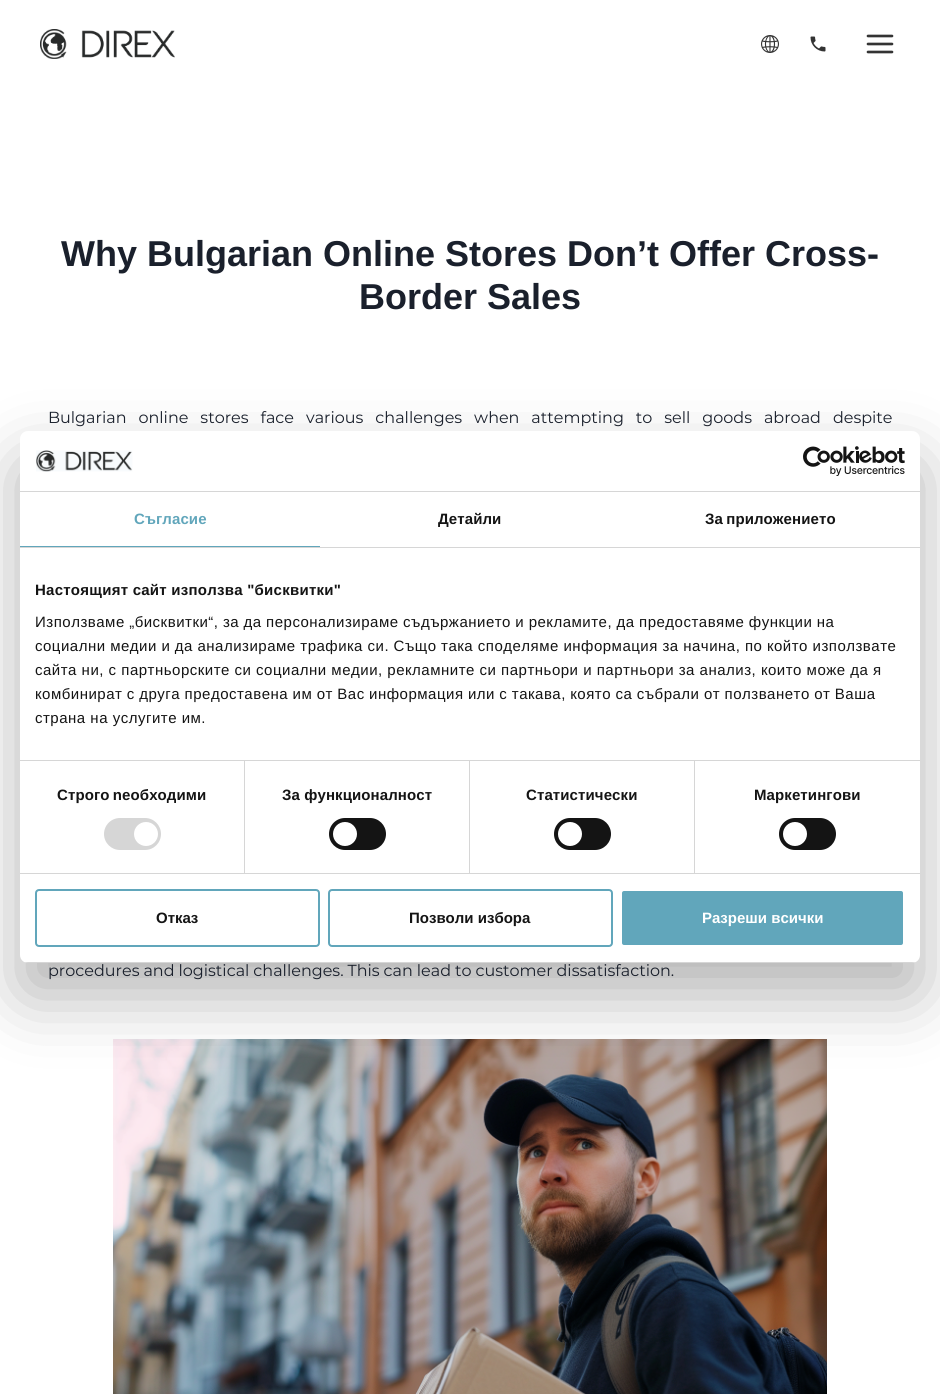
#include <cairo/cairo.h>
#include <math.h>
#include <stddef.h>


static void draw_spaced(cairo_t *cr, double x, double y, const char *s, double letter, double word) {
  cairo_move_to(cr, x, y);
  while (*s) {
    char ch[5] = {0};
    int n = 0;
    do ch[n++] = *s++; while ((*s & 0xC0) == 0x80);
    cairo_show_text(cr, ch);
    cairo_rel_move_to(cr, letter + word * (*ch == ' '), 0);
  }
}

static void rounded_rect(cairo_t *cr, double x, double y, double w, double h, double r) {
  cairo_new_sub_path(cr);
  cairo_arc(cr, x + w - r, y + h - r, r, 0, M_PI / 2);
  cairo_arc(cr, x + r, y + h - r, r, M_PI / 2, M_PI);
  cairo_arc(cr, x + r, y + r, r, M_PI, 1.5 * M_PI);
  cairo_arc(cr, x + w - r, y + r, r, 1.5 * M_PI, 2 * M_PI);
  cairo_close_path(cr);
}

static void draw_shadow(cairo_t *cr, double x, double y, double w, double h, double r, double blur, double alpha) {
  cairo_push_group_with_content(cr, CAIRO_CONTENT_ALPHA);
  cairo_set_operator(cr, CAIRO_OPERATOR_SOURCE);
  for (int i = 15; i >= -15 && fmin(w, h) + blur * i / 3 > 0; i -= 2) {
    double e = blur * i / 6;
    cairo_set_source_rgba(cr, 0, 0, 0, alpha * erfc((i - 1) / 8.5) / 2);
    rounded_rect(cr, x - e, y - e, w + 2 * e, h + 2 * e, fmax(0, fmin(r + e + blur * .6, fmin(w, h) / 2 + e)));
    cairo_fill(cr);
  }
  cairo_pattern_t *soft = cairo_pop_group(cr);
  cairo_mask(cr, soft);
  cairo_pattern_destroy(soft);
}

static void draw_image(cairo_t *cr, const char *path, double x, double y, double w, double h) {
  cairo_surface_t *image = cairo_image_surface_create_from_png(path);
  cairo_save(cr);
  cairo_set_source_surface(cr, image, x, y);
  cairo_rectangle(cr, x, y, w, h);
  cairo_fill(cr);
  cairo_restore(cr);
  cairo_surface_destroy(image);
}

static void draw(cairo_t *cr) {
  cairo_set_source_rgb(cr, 1, 1, 1);
  cairo_paint(cr);
  draw_image(cr, "images/1.png", 40, 29, 135, 30);
  draw_image(cr, "images/2.png", 761, 35, 18, 18);
  draw_image(cr, "images/3.png", 810, 36, 16, 16);
  draw_image(cr, "images/4.png", 866, 34, 28, 20);
  draw_image(cr, "images/5.png", 113, 1039, 714, 355);
  cairo_set_source_rgb(cr, 0, 0, 0);
  draw_shadow(cr, 20, 463, 900, 532, 8, 34, 0.3);
  cairo_set_source_rgb(cr, 1, 1, 1);
  rounded_rect(cr, 20, 431, 900, 532, 8);
  cairo_fill(cr);
  cairo_set_source_rgb(cr, 214 / 255.0, 214 / 255.0, 214 / 255.0);
  cairo_rectangle(cr, 20, 491, 900, 1);
  cairo_fill(cr);
  draw_image(cr, "images/6.png", 36, 450, 97, 22);
  draw_image(cr, "images/7.png", 803, 446, 102, 30);
  cairo_rectangle(cr, 20, 547, 900, 1);
  cairo_fill(cr);
  cairo_set_source_rgb(cr, 97 / 255.0, 166 / 255.0, 187 / 255.0);
  cairo_rectangle(cr, 20, 546, 300, 1);
  cairo_fill(cr);
  cairo_set_source_rgb(cr, 214 / 255.0, 214 / 255.0, 214 / 255.0);
  cairo_rectangle(cr, 20, 760, 900, 1);
  cairo_fill(cr);
  cairo_rectangle(cr, 20, 873, 900, 1);
  cairo_fill(cr);
  cairo_rectangle(cr, 244, 761, 1, 112);
  cairo_fill(cr);
  rounded_rect(cr, 104, 818, 57, 32, 16);
  cairo_fill(cr);
  cairo_set_source_rgb(cr, 1, 1, 1);
  cairo_arc(cr, 146, 834, 12, 0, 2 * M_PI);
  cairo_fill(cr);
  cairo_set_source_rgb(cr, 214 / 255.0, 214 / 255.0, 214 / 255.0);
  cairo_rectangle(cr, 469, 761, 1, 112);
  cairo_fill(cr);
  cairo_set_source_rgb(cr, 20 / 255.0, 20 / 255.0, 20 / 255.0);
  rounded_rect(cr, 329, 818, 57, 32, 16);
  cairo_fill(cr);
  cairo_set_source_rgb(cr, 1, 1, 1);
  cairo_arc(cr, 345, 834, 12, 0, 2 * M_PI);
  cairo_fill(cr);
  cairo_set_source_rgb(cr, 214 / 255.0, 214 / 255.0, 214 / 255.0);
  cairo_rectangle(cr, 694, 761, 1, 112);
  cairo_fill(cr);
  cairo_set_source_rgb(cr, 20 / 255.0, 20 / 255.0, 20 / 255.0);
  rounded_rect(cr, 554, 818, 57, 32, 16);
  cairo_fill(cr);
  cairo_set_source_rgb(cr, 1, 1, 1);
  cairo_arc(cr, 570, 834, 12, 0, 2 * M_PI);
  cairo_fill(cr);
  cairo_set_source_rgb(cr, 20 / 255.0, 20 / 255.0, 20 / 255.0);
  rounded_rect(cr, 779, 818, 57, 32, 16);
  cairo_fill(cr);
  cairo_set_source_rgb(cr, 1, 1, 1);
  cairo_arc(cr, 795, 834, 12, 0, 2 * M_PI);
  cairo_fill(cr);
  cairo_save(cr);
  rounded_rect(cr, 20, 431, 900, 532, 8);
  cairo_clip(cr);
  cairo_set_source_rgb(cr, 214 / 255.0, 214 / 255.0, 214 / 255.0);
  cairo_rectangle(cr, 20, 962, 900, 1);
  cairo_fill(cr);
  cairo_restore(cr);
  rounded_rect(cr, 36, 890, 283, 56, 3);
  cairo_set_source_rgb(cr, 97 / 255.0, 166 / 255.0, 187 / 255.0);
  cairo_stroke(cr);
  rounded_rect(cr, 329, 890, 283, 56, 3);
  cairo_stroke(cr);
  rounded_rect(cr, 621, 890, 283, 56, 3);
  cairo_fill_preserve(cr);
  cairo_set_source_rgb(cr, 1, 1, 1);
  cairo_stroke(cr);
  cairo_select_font_face(cr, "Liberation Sans", CAIRO_FONT_SLANT_NORMAL, CAIRO_FONT_WEIGHT_BOLD);
  cairo_set_font_size(cr, 36);
  cairo_set_source_rgb(cr, 26 / 255.0, 32 / 255.0, 44 / 255.0);
  cairo_move_to(cr, 61, 266);
  cairo_show_text(cr, "Why Bulgarian Online Stores Don’t Offer Cross-");
  cairo_move_to(cr, 359, 309);
  cairo_show_text(cr, "Border Sales");
  cairo_select_font_face(cr, "Montserrat", CAIRO_FONT_SLANT_NORMAL, CAIRO_FONT_WEIGHT_NORMAL);
  cairo_set_font_size(cr, 16);
  draw_spaced(cr, 48, 423, "Bulgarian online stores face various challenges when attempting to sell goods abroad despite", 0, 7.75);
  draw_spaced(cr, 48, 976, "procedures and logistical challenges. This can lead to customer dissatisfaction.", 0, -0.25);
  cairo_select_font_face(cr, "Liberation Sans", CAIRO_FONT_SLANT_NORMAL, CAIRO_FONT_WEIGHT_BOLD);
  cairo_set_font_size(cr, 15);
  cairo_set_source_rgb(cr, 97 / 255.0, 166 / 255.0, 187 / 255.0);
  draw_spaced(cr, 134, 524, "Съгласие", 0.1, 0);
  cairo_set_source_rgb(cr, 20 / 255.0, 20 / 255.0, 20 / 255.0);
  draw_spaced(cr, 438, 524, "Детайли", 0.1, 0);
  draw_spaced(cr, 705, 524, "За приложението", 0.1, -1);
  draw_spaced(cr, 35, 595, "Настоящият сайт използва \"бисквитки\"", 0.25, 0);
  cairo_select_font_face(cr, "Liberation Sans", CAIRO_FONT_SLANT_NORMAL, CAIRO_FONT_WEIGHT_NORMAL);
  draw_spaced(cr, 35, 627, "Използваме „бисквитки“, за да персонализираме съдържанието и рекламите, да предоставяме функции на", 0.5, -0.25);
  draw_spaced(cr, 35, 651, "социални медии и да анализираме трафика си. Също така споделяме информация за начина, по който използвате", 0.5, -0.1);
  draw_spaced(cr, 35, 675, "сайта ни, с партньорските си социални медии, рекламните си партньори и партньори за анализ, които може да я", 0.5, 0);
  draw_spaced(cr, 35, 699, "комбинират с друга предоставена им от Вас информация или с такава, която са събрали от ползването от Ваша", 0.5, -0.25);
  draw_spaced(cr, 35, 723, "страна на услугите им.", 0.5, 0);
  cairo_select_font_face(cr, "Liberation Sans", CAIRO_FONT_SLANT_NORMAL, CAIRO_FONT_WEIGHT_BOLD);
  draw_spaced(cr, 57, 800, "Строго nеобходими", 0.1, -1);
  draw_spaced(cr, 282, 800, "За функционалност", 0.1, 0);
  draw_spaced(cr, 526, 800, "Статистически", 0.1, 0);
  draw_spaced(cr, 754, 800, "Маркетингови", 0.1, 0);
  cairo_move_to(cr, 156, 923);
  cairo_show_text(cr, "Отказ");
  cairo_move_to(cr, 409, 923);
  cairo_show_text(cr, "Позволи избора");
  cairo_set_source_rgb(cr, 1, 1, 1);
  cairo_move_to(cr, 702, 923);
  cairo_show_text(cr, "Разреши всички");
}

int main(void) {
  cairo_surface_t *surface = cairo_image_surface_create(CAIRO_FORMAT_RGB24, 940, 1394);
  cairo_t *cr = cairo_create(surface);
  cairo_font_options_t *options = cairo_font_options_create();
  cairo_font_options_set_hint_metrics(options, CAIRO_HINT_METRICS_OFF);
  cairo_font_options_set_hint_style(options, CAIRO_HINT_STYLE_NONE);
  cairo_set_font_options(cr, options);
  cairo_set_miter_limit(cr, 4);
  draw(cr);
  cairo_surface_write_to_png(surface, "out.png");
  cairo_font_options_destroy(options);
  cairo_destroy(cr);
  cairo_surface_destroy(surface);
  return 0;
}
